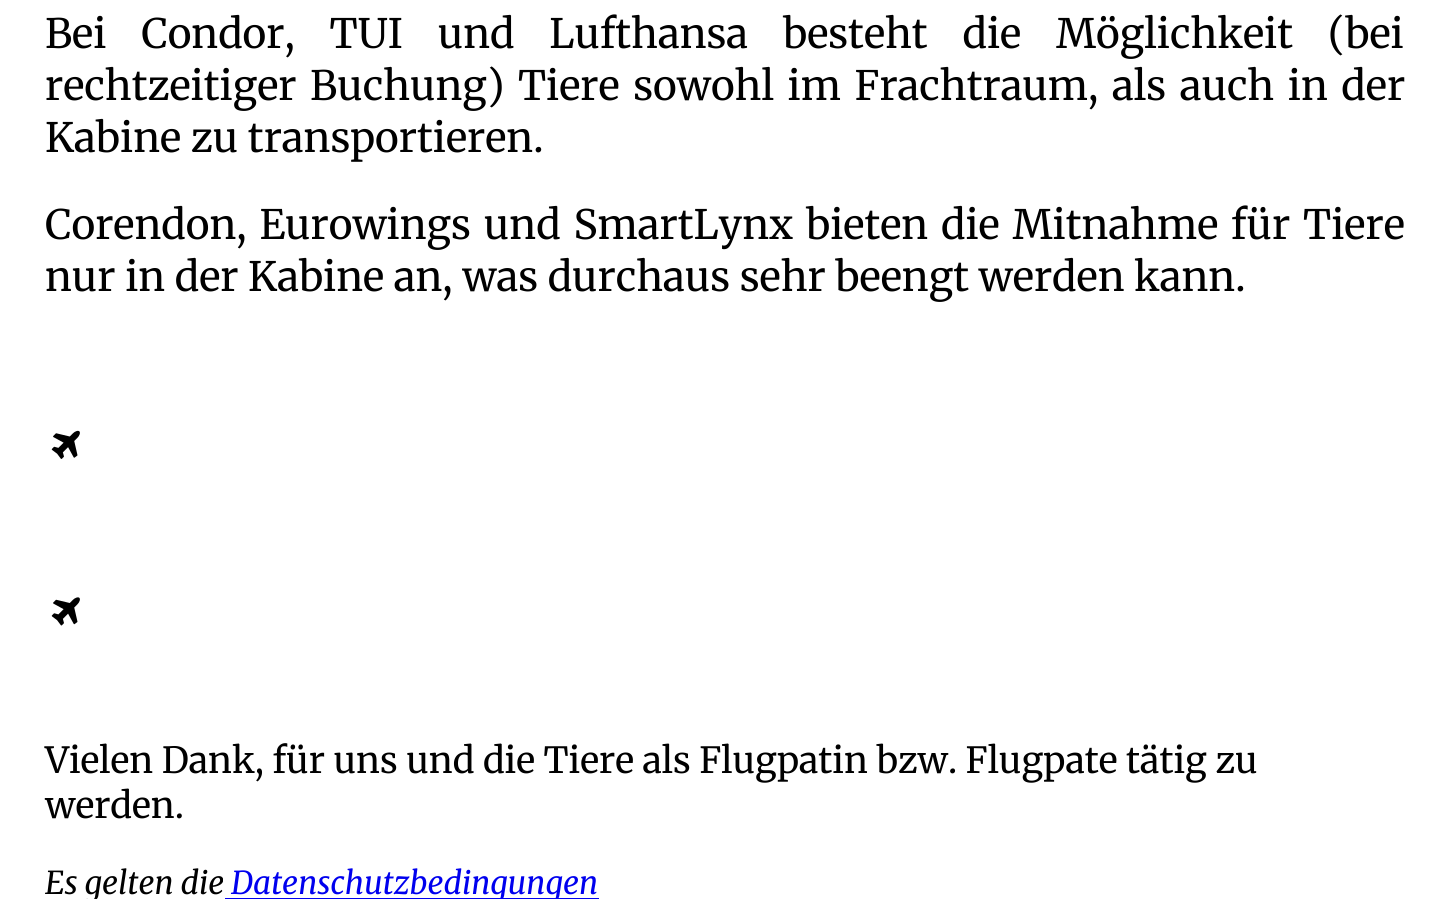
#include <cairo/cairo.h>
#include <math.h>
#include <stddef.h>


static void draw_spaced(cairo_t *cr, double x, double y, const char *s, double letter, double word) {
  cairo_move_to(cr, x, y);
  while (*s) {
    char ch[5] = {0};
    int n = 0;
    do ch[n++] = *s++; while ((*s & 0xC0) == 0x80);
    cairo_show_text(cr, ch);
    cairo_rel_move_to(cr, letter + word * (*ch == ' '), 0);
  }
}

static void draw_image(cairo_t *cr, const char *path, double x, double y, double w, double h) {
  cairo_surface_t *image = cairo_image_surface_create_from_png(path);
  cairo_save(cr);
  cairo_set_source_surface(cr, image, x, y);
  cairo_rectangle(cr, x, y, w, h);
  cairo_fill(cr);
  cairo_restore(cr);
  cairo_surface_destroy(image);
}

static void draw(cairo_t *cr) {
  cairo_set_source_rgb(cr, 1, 1, 1);
  cairo_paint(cr);
  draw_image(cr, "images/1.png", 51, 430, 29, 29);
  draw_image(cr, "images/2.png", 51, 597, 29, 29);
  cairo_set_source_rgb(cr, 0, 0, 238 / 255.0);
  cairo_rectangle(cr, 225, 898, 374, 1);
  cairo_fill(cr);
  cairo_select_font_face(cr, "Merriweather", CAIRO_FONT_SLANT_NORMAL, CAIRO_FONT_WEIGHT_NORMAL);
  cairo_set_font_size(cr, 40.5);
  cairo_set_source_rgb(cr, 0, 0, 0);
  draw_spaced(cr, 45, 48, "Bei Condor, TUI und Lufthansa besteht die Möglichkeit (bei", 0, 25.25);
  draw_spaced(cr, 45, 100, "rechtzeitiger Buchung) Tiere sowohl im Frachtraum, als auch in der", 0, 4);
  cairo_move_to(cr, 45, 152);
  cairo_show_text(cr, "Kabine zu transportieren.");
  draw_spaced(cr, 45, 239, "Corendon, Eurowings und SmartLynx bieten die Mitnahme für Tiere", 0, 3.25);
  cairo_move_to(cr, 45, 291);
  cairo_show_text(cr, "nur in der Kabine an, was durchaus sehr beengt werden kann.");
  cairo_set_font_size(cr, 36);
  cairo_move_to(cr, 45, 773);
  cairo_show_text(cr, "Vielen Dank, für uns und die Tiere als Flugpatin bzw. Flugpate tätig zu");
  cairo_move_to(cr, 45, 818);
  cairo_show_text(cr, "werden.");
  cairo_select_font_face(cr, "Merriweather", CAIRO_FONT_SLANT_ITALIC, CAIRO_FONT_WEIGHT_NORMAL);
  cairo_set_font_size(cr, 31.5);
  cairo_move_to(cr, 45, 894);
  cairo_show_text(cr, "Es gelten die");
  cairo_set_source_rgb(cr, 0, 0, 238 / 255.0);
  cairo_move_to(cr, 231, 894);
  cairo_show_text(cr, "Datenschutzbedingungen");
}

int main(void) {
  cairo_surface_t *surface = cairo_image_surface_create(CAIRO_FORMAT_RGB24, 1449, 899);
  cairo_t *cr = cairo_create(surface);
  cairo_font_options_t *options = cairo_font_options_create();
  cairo_font_options_set_hint_metrics(options, CAIRO_HINT_METRICS_OFF);
  cairo_font_options_set_hint_style(options, CAIRO_HINT_STYLE_NONE);
  cairo_set_font_options(cr, options);
  cairo_set_miter_limit(cr, 4);
  draw(cr);
  cairo_surface_write_to_png(surface, "out.png");
  cairo_font_options_destroy(options);
  cairo_destroy(cr);
  cairo_surface_destroy(surface);
  return 0;
}
